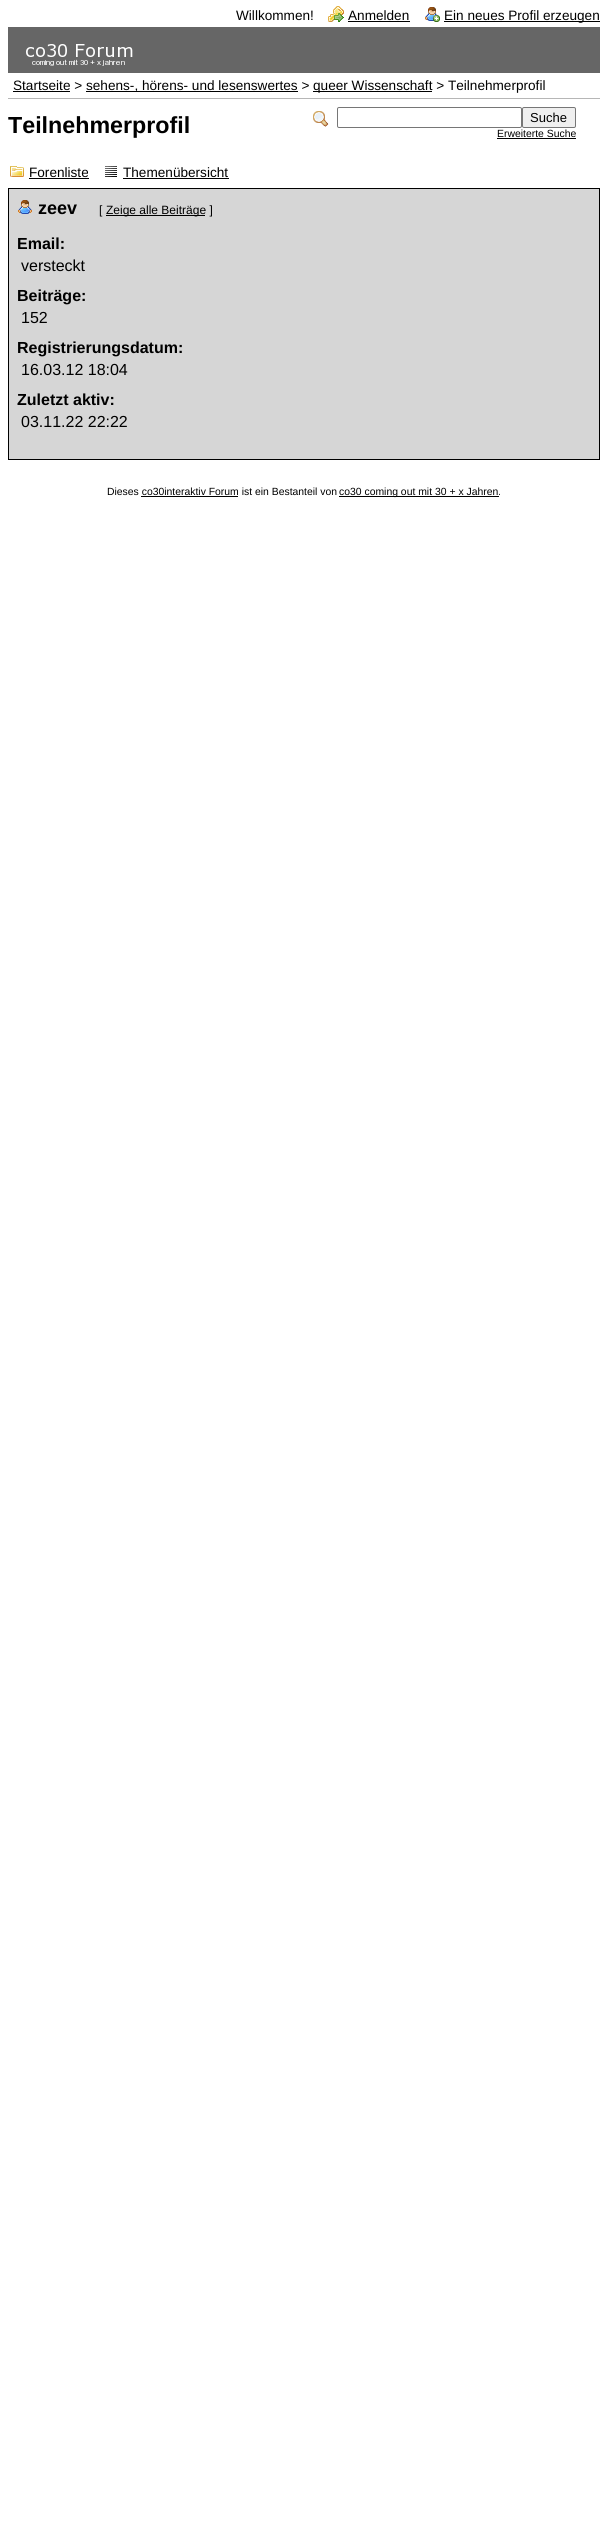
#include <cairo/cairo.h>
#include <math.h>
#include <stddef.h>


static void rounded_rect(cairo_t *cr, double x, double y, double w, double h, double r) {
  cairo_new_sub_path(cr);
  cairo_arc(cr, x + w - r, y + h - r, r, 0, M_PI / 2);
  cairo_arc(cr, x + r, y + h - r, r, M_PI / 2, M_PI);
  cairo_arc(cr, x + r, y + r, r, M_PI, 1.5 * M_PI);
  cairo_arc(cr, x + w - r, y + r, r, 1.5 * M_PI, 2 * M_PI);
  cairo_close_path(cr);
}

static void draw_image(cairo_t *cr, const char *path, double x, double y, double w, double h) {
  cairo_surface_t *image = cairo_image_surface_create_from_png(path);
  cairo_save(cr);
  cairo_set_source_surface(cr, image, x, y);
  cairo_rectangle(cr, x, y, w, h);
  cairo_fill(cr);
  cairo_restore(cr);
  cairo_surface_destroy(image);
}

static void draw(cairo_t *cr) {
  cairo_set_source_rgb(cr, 1, 1, 1);
  cairo_paint(cr);
  draw_image(cr, "images/1.png", 328, 6, 16, 16);
  cairo_set_source_rgb(cr, 0, 0, 0);
  cairo_rectangle(cr, 348, 21, 62, 1);
  cairo_fill(cr);
  draw_image(cr, "images/2.png", 425, 7, 15, 15);
  cairo_rectangle(cr, 444, 21, 156, 1);
  cairo_fill(cr);
  cairo_set_source_rgb(cr, 102 / 255.0, 102 / 255.0, 102 / 255.0);
  cairo_rectangle(cr, 8, 27, 592, 46);
  cairo_fill(cr);
  draw_image(cr, "images/3.png", 26, 44, 107, 22);
  cairo_set_source_rgb(cr, 182 / 255.0, 182 / 255.0, 182 / 255.0);
  cairo_rectangle(cr, 8, 98, 592, 1);
  cairo_fill(cr);
  cairo_set_source_rgb(cr, 0, 0, 0);
  cairo_rectangle(cr, 13, 91, 57, 1);
  cairo_fill(cr);
  cairo_rectangle(cr, 86, 91, 212, 1);
  cairo_fill(cr);
  cairo_rectangle(cr, 313, 91, 119, 1);
  cairo_fill(cr);
  draw_image(cr, "images/4.png", 313, 111, 16, 16);
  rounded_rect(cr, 337.5, 107.5, 184, 20, 1.5);
  cairo_set_source_rgb(cr, 118 / 255.0, 118 / 255.0, 118 / 255.0);
  cairo_set_line_width(cr, 1);
  cairo_stroke(cr);
  cairo_set_source_rgb(cr, 239 / 255.0, 239 / 255.0, 239 / 255.0);
  rounded_rect(cr, 522.5, 107.5, 53, 20, 1.5);
  cairo_fill_preserve(cr);
  cairo_set_source_rgb(cr, 118 / 255.0, 118 / 255.0, 118 / 255.0);
  cairo_stroke(cr);
  cairo_set_source_rgb(cr, 0, 0, 0);
  cairo_rectangle(cr, 497, 138, 79, 1);
  cairo_fill(cr);
  draw_image(cr, "images/5.png", 10, 166, 14, 11);
  cairo_rectangle(cr, 29, 178, 60, 1);
  cairo_fill(cr);
  draw_image(cr, "images/6.png", 105, 166, 12, 11);
  cairo_rectangle(cr, 123, 178, 106, 1);
  cairo_fill(cr);
  cairo_set_source_rgb(cr, 214 / 255.0, 214 / 255.0, 214 / 255.0);
  cairo_rectangle(cr, 8.5, 188.5, 591, 271);
  cairo_fill_preserve(cr);
  cairo_set_source_rgb(cr, 0, 0, 0);
  cairo_stroke(cr);
  draw_image(cr, "images/7.png", 18, 200, 14, 14);
  cairo_rectangle(cr, 106, 215, 99, 1);
  cairo_fill(cr);
  cairo_rectangle(cr, 339, 496, 160, 1);
  cairo_fill(cr);
  cairo_rectangle(cr, 141, 496, 97, 1);
  cairo_fill(cr);
  cairo_select_font_face(cr, "Liberation Sans", CAIRO_FONT_SLANT_NORMAL, CAIRO_FONT_WEIGHT_NORMAL);
  cairo_set_font_size(cr, 13.6);
  cairo_move_to(cr, 236, 20);
  cairo_show_text(cr, "Willkommen!");
  cairo_move_to(cr, 348, 20);
  cairo_show_text(cr, "Anmelden");
  cairo_move_to(cr, 444, 20);
  cairo_show_text(cr, "Ein neues Profil erzeugen");
  cairo_move_to(cr, 13, 90);
  cairo_show_text(cr, "Startseite >");
  cairo_move_to(cr, 86, 90);
  cairo_show_text(cr, "sehens-, hörens- und lesenswertes >");
  cairo_move_to(cr, 313, 90);
  cairo_show_text(cr, "queer Wissenschaft > Teilnehmerprofil");
  cairo_select_font_face(cr, "Liberation Sans", CAIRO_FONT_SLANT_NORMAL, CAIRO_FONT_WEIGHT_BOLD);
  cairo_set_font_size(cr, 23.25);
  cairo_move_to(cr, 8, 133);
  cairo_show_text(cr, "Teilnehmerprofil");
  cairo_select_font_face(cr, "Liberation Sans", CAIRO_FONT_SLANT_NORMAL, CAIRO_FONT_WEIGHT_NORMAL);
  cairo_set_font_size(cr, 13);
  cairo_move_to(cr, 530, 122);
  cairo_show_text(cr, "Suche");
  cairo_set_font_size(cr, 10.4);
  cairo_move_to(cr, 497, 137);
  cairo_show_text(cr, "Erweiterte Suche");
  cairo_set_font_size(cr, 13.6);
  cairo_move_to(cr, 29, 177);
  cairo_show_text(cr, "Forenliste");
  cairo_move_to(cr, 123, 177);
  cairo_show_text(cr, "Themenübersicht");
  cairo_select_font_face(cr, "Liberation Sans", CAIRO_FONT_SLANT_NORMAL, CAIRO_FONT_WEIGHT_BOLD);
  cairo_set_font_size(cr, 18);
  cairo_move_to(cr, 38, 214);
  cairo_show_text(cr, "zeev");
  cairo_select_font_face(cr, "Liberation Sans", CAIRO_FONT_SLANT_NORMAL, CAIRO_FONT_WEIGHT_NORMAL);
  cairo_set_font_size(cr, 12);
  cairo_move_to(cr, 99, 214);
  cairo_show_text(cr, "[");
  cairo_move_to(cr, 106, 214);
  cairo_show_text(cr, "Zeige alle Beiträge ]");
  cairo_select_font_face(cr, "Liberation Sans", CAIRO_FONT_SLANT_NORMAL, CAIRO_FONT_WEIGHT_BOLD);
  cairo_set_font_size(cr, 16);
  cairo_move_to(cr, 17, 249);
  cairo_show_text(cr, "Email:");
  cairo_select_font_face(cr, "Liberation Sans", CAIRO_FONT_SLANT_NORMAL, CAIRO_FONT_WEIGHT_NORMAL);
  cairo_move_to(cr, 21, 271);
  cairo_show_text(cr, "versteckt");
  cairo_select_font_face(cr, "Liberation Sans", CAIRO_FONT_SLANT_NORMAL, CAIRO_FONT_WEIGHT_BOLD);
  cairo_move_to(cr, 17, 301);
  cairo_show_text(cr, "Beiträge:");
  cairo_select_font_face(cr, "Liberation Sans", CAIRO_FONT_SLANT_NORMAL, CAIRO_FONT_WEIGHT_NORMAL);
  cairo_move_to(cr, 21, 323);
  cairo_show_text(cr, "152");
  cairo_select_font_face(cr, "Liberation Sans", CAIRO_FONT_SLANT_NORMAL, CAIRO_FONT_WEIGHT_BOLD);
  cairo_move_to(cr, 17, 353);
  cairo_show_text(cr, "Registrierungsdatum:");
  cairo_select_font_face(cr, "Liberation Sans", CAIRO_FONT_SLANT_NORMAL, CAIRO_FONT_WEIGHT_NORMAL);
  cairo_move_to(cr, 21, 375);
  cairo_show_text(cr, "16.03.12 18:04");
  cairo_select_font_face(cr, "Liberation Sans", CAIRO_FONT_SLANT_NORMAL, CAIRO_FONT_WEIGHT_BOLD);
  cairo_move_to(cr, 17, 405);
  cairo_show_text(cr, "Zuletzt aktiv:");
  cairo_select_font_face(cr, "Liberation Sans", CAIRO_FONT_SLANT_NORMAL, CAIRO_FONT_WEIGHT_NORMAL);
  cairo_move_to(cr, 21, 427);
  cairo_show_text(cr, "03.11.22 22:22");
  cairo_set_font_size(cr, 10.4);
  cairo_move_to(cr, 107, 495);
  cairo_show_text(cr, "Dieses co30interaktiv Forum ist ein Bestanteil von");
  cairo_move_to(cr, 339, 495);
  cairo_show_text(cr, "co30 coming out mit 30 + x Jahren.");
}

int main(void) {
  cairo_surface_t *surface = cairo_image_surface_create(CAIRO_FORMAT_RGB24, 608, 2544);
  cairo_t *cr = cairo_create(surface);
  cairo_font_options_t *options = cairo_font_options_create();
  cairo_font_options_set_hint_metrics(options, CAIRO_HINT_METRICS_OFF);
  cairo_font_options_set_hint_style(options, CAIRO_HINT_STYLE_NONE);
  cairo_set_font_options(cr, options);
  cairo_set_miter_limit(cr, 4);
  draw(cr);
  cairo_surface_write_to_png(surface, "out.png");
  cairo_font_options_destroy(options);
  cairo_destroy(cr);
  cairo_surface_destroy(surface);
  return 0;
}
